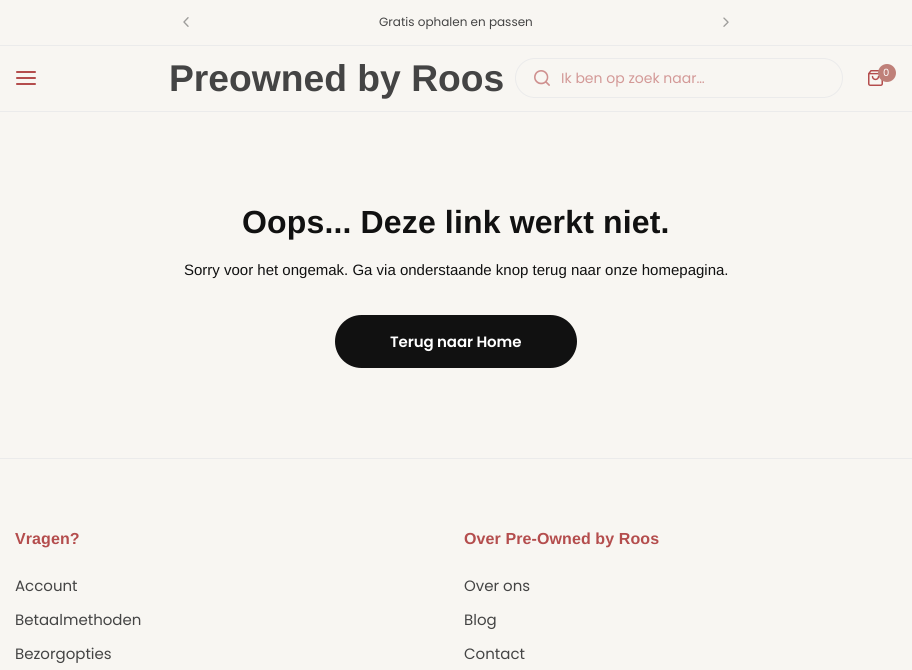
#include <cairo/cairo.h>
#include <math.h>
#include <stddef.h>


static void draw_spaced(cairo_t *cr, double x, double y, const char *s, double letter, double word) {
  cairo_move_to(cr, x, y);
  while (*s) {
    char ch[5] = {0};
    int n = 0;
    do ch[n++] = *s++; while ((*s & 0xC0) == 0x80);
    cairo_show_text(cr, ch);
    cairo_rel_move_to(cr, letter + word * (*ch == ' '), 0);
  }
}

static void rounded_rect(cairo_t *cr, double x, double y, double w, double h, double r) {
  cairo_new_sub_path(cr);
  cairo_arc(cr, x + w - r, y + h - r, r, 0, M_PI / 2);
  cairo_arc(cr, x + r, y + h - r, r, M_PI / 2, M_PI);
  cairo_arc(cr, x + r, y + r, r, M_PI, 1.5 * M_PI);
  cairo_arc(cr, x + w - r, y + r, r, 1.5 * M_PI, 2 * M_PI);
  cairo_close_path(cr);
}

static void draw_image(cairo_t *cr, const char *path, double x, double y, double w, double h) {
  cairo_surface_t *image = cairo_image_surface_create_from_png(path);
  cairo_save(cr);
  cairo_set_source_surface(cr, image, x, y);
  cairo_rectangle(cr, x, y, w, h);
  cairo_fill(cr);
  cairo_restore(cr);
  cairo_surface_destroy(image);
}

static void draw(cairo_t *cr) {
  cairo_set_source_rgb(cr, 248 / 255.0, 246 / 255.0, 242 / 255.0);
  cairo_paint(cr);
  cairo_set_source_rgb(cr, 235 / 255.0, 235 / 255.0, 235 / 255.0);
  cairo_rectangle(cr, 0, 45, 912, 1);
  cairo_fill(cr);
  draw_image(cr, "images/1.png", 183, 17, 6, 10);
  draw_image(cr, "images/2.png", 723, 17, 6, 10);
  cairo_rectangle(cr, 0, 111, 912, 1);
  cairo_fill(cr);
  draw_image(cr, "images/3.png", 16, 71, 20, 14);
  rounded_rect(cr, 515.5, 58.5, 327, 39, 19.5);
  cairo_set_line_width(cr, 1);
  cairo_stroke(cr);
  draw_image(cr, "images/4.png", 534, 70, 16, 16);
  draw_image(cr, "images/5.png", 868, 70, 15, 16);
  cairo_set_source_rgb(cr, 191 / 255.0, 128 / 255.0, 121 / 255.0);
  cairo_arc(cr, 887, 73, 9, 0, 2 * M_PI);
  cairo_fill(cr);
  cairo_set_source_rgb(cr, 17 / 255.0, 17 / 255.0, 17 / 255.0);
  rounded_rect(cr, 335, 315, 242, 53, 26.5);
  cairo_fill(cr);
  cairo_set_source_rgb(cr, 235 / 255.0, 235 / 255.0, 235 / 255.0);
  cairo_rectangle(cr, 0, 458, 912, 1);
  cairo_fill(cr);
  cairo_select_font_face(cr, "Poppins", CAIRO_FONT_SLANT_NORMAL, CAIRO_FONT_WEIGHT_NORMAL);
  cairo_set_font_size(cr, 12);
  cairo_set_source_rgb(cr, 68 / 255.0, 68 / 255.0, 68 / 255.0);
  cairo_move_to(cr, 379, 26);
  cairo_show_text(cr, "Gratis ophalen en passen");
  cairo_select_font_face(cr, "Liberation Sans", CAIRO_FONT_SLANT_NORMAL, CAIRO_FONT_WEIGHT_BOLD);
  cairo_set_font_size(cr, 37.25);
  cairo_move_to(cr, 169, 91);
  cairo_show_text(cr, "Preowned by Roos");
  cairo_select_font_face(cr, "Poppins", CAIRO_FONT_SLANT_NORMAL, CAIRO_FONT_WEIGHT_NORMAL);
  cairo_set_font_size(cr, 14);
  cairo_set_source_rgb(cr, 211 / 255.0, 153 / 255.0, 151 / 255.0);
  cairo_move_to(cr, 561, 83);
  cairo_show_text(cr, "Ik ben op zoek naar…");
  cairo_set_font_size(cr, 10);
  cairo_set_source_rgb(cr, 1, 1, 1);
  cairo_move_to(cr, 883, 76);
  cairo_show_text(cr, "0");
  cairo_select_font_face(cr, "Liberation Sans", CAIRO_FONT_SLANT_NORMAL, CAIRO_FONT_WEIGHT_BOLD);
  cairo_set_font_size(cr, 32);
  cairo_set_source_rgb(cr, 17 / 255.0, 17 / 255.0, 17 / 255.0);
  draw_spaced(cr, 242, 233, "Oops... Deze link werkt niet.", 0.15, 0);
  cairo_select_font_face(cr, "Liberation Sans", CAIRO_FONT_SLANT_NORMAL, CAIRO_FONT_WEIGHT_NORMAL);
  cairo_set_font_size(cr, 15);
  cairo_move_to(cr, 184, 275);
  cairo_show_text(cr, "Sorry voor het ongemak. Ga via onderstaande knop terug naar onze homepagina.");
  cairo_select_font_face(cr, "Poppins SemiBold", CAIRO_FONT_SLANT_NORMAL, CAIRO_FONT_WEIGHT_NORMAL);
  cairo_set_source_rgb(cr, 1, 1, 1);
  draw_spaced(cr, 390, 347, "Terug naar Home", -0.1, 0);
  cairo_select_font_face(cr, "Liberation Sans", CAIRO_FONT_SLANT_NORMAL, CAIRO_FONT_WEIGHT_BOLD);
  cairo_set_font_size(cr, 16);
  cairo_set_source_rgb(cr, 180 / 255.0, 77 / 255.0, 77 / 255.0);
  draw_spaced(cr, 15, 544, "Vragen?", 0.1, 0);
  cairo_select_font_face(cr, "Poppins", CAIRO_FONT_SLANT_NORMAL, CAIRO_FONT_WEIGHT_NORMAL);
  cairo_set_font_size(cr, 15);
  cairo_set_source_rgb(cr, 68 / 255.0, 68 / 255.0, 68 / 255.0);
  cairo_move_to(cr, 15, 591);
  cairo_show_text(cr, "Account");
  cairo_move_to(cr, 15, 625);
  cairo_show_text(cr, "Betaalmethoden");
  cairo_move_to(cr, 15, 659);
  cairo_show_text(cr, "Bezorgopties");
  cairo_select_font_face(cr, "Liberation Sans", CAIRO_FONT_SLANT_NORMAL, CAIRO_FONT_WEIGHT_BOLD);
  cairo_set_font_size(cr, 16);
  cairo_set_source_rgb(cr, 180 / 255.0, 77 / 255.0, 77 / 255.0);
  draw_spaced(cr, 464, 544, "Over Pre-Owned by Roos", 0.1, 0);
  cairo_select_font_face(cr, "Poppins", CAIRO_FONT_SLANT_NORMAL, CAIRO_FONT_WEIGHT_NORMAL);
  cairo_set_font_size(cr, 15);
  cairo_set_source_rgb(cr, 68 / 255.0, 68 / 255.0, 68 / 255.0);
  cairo_move_to(cr, 464, 591);
  cairo_show_text(cr, "Over ons");
  cairo_move_to(cr, 464, 625);
  cairo_show_text(cr, "Blog");
  cairo_move_to(cr, 464, 659);
  cairo_show_text(cr, "Contact");
}

int main(void) {
  cairo_surface_t *surface = cairo_image_surface_create(CAIRO_FORMAT_RGB24, 912, 670);
  cairo_t *cr = cairo_create(surface);
  cairo_font_options_t *options = cairo_font_options_create();
  cairo_font_options_set_hint_metrics(options, CAIRO_HINT_METRICS_OFF);
  cairo_font_options_set_hint_style(options, CAIRO_HINT_STYLE_NONE);
  cairo_set_font_options(cr, options);
  cairo_set_miter_limit(cr, 4);
  draw(cr);
  cairo_surface_write_to_png(surface, "out.png");
  cairo_font_options_destroy(options);
  cairo_destroy(cr);
  cairo_surface_destroy(surface);
  return 0;
}
